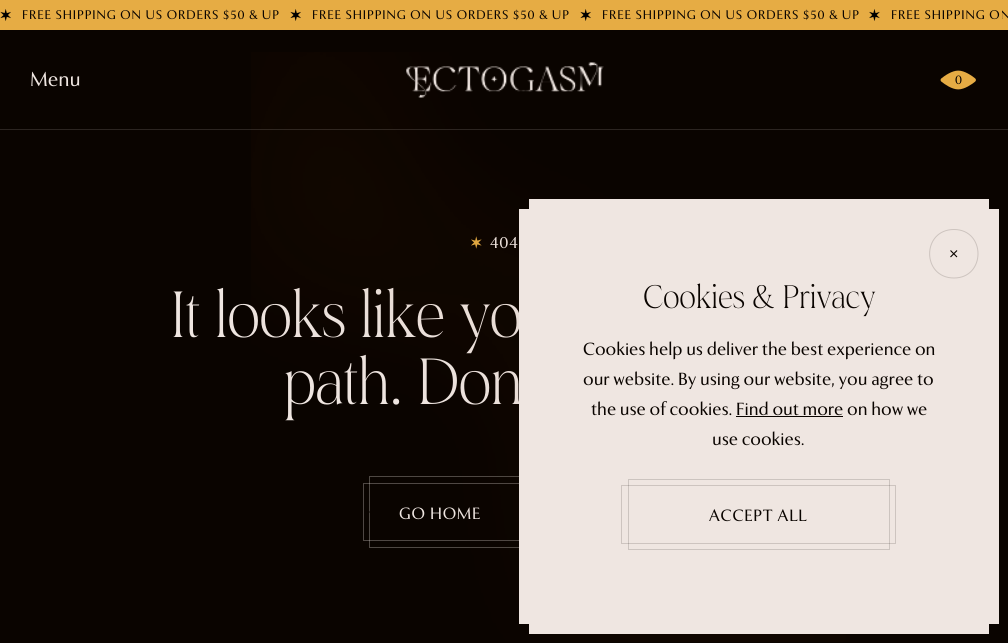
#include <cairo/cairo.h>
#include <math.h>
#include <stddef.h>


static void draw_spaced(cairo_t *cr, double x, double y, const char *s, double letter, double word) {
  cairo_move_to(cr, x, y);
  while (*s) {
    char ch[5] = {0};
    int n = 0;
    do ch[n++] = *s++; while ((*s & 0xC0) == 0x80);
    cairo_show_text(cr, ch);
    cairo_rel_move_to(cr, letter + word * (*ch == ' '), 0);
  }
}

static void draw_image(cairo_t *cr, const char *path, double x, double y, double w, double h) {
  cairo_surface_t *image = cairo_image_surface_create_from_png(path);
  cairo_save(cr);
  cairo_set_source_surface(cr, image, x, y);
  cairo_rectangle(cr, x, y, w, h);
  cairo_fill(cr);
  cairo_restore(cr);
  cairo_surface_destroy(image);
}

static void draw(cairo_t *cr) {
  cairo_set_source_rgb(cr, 10 / 255.0, 4 / 255.0, 0);
  cairo_paint(cr);
  cairo_set_source_rgb(cr, 230 / 255.0, 172 / 255.0, 68 / 255.0);
  cairo_rectangle(cr, 0, 0, 1008, 30);
  cairo_fill(cr);
  draw_image(cr, "images/1.png", 0, 9, 11, 12);
  draw_image(cr, "images/1.png", 290, 9, 11, 12);
  draw_image(cr, "images/1.png", 580, 9, 11, 12);
  draw_image(cr, "images/2.png", 869, 9, 11, 12);
  draw_image(cr, "images/4.png", 940, 70, 36, 20);
  draw_image(cr, "images/6.png", 471, 236, 11, 13);
  cairo_rectangle(cr, 363.5, 483.5, 284, 57);
  cairo_set_source_rgb(cr, 79 / 255.0, 72 / 255.0, 68 / 255.0);
  cairo_set_line_width(cr, 1);
  cairo_stroke(cr);
  cairo_rectangle(cr, 369.5, 476.5, 271, 71);
  cairo_set_source_rgba(cr, 239 / 255.0, 230 / 255.0, 225 / 255.0, 0.3);
  cairo_stroke(cr);
  cairo_set_source_rgb(cr, 10 / 255.0, 4 / 255.0, 0);
  cairo_new_path(cr);
  cairo_move_to(cr, 370, 512);
  cairo_line_to(cr, 364, 517);
  cairo_line_to(cr, 367, 512);
  cairo_line_to(cr, 364, 507);
  cairo_close_path(cr);
  cairo_fill(cr);
  cairo_select_font_face(cr, "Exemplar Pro", CAIRO_FONT_SLANT_NORMAL, CAIRO_FONT_WEIGHT_NORMAL);
  cairo_set_font_size(cr, 12.5);
  draw_spaced(cr, 22, 19, "FREE SHIPPING ON US ORDERS $50 & UP", 0.9, 0);
  draw_spaced(cr, 312, 19, "FREE SHIPPING ON US ORDERS $50 & UP", 0.9, 0);
  draw_spaced(cr, 602, 19, "FREE SHIPPING ON US ORDERS $50 & UP", 0.9, 0);
  draw_spaced(cr, 891, 19, "FREE SHIPPING ON", 0.9, 0);
  cairo_set_font_size(cr, 20);
  cairo_set_source_rgb(cr, 239 / 255.0, 230 / 255.0, 225 / 255.0);
  cairo_move_to(cr, 30, 86);
  cairo_show_text(cr, "Menu");
  cairo_set_font_size(cr, 12.5);
  cairo_set_source_rgb(cr, 10 / 255.0, 4 / 255.0, 0);
  cairo_move_to(cr, 955, 84);
  cairo_show_text(cr, "0");
  cairo_set_font_size(cr, 16.25);
  cairo_set_source_rgb(cr, 239 / 255.0, 230 / 255.0, 225 / 255.0);
  draw_spaced(cr, 490, 248, "404", 0.75, 0);
  cairo_select_font_face(cr, "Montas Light", CAIRO_FONT_SLANT_NORMAL, CAIRO_FONT_WEIGHT_NORMAL);
  cairo_set_font_size(cr, 65);
  draw_spaced(cr, 170, 337, "It looks like yo", -1.25, 0);
  draw_spaced(cr, 283, 404, "path. Don", -1.25, 0);
  cairo_select_font_face(cr, "Exemplar Pro", CAIRO_FONT_SLANT_NORMAL, CAIRO_FONT_WEIGHT_NORMAL);
  cairo_set_font_size(cr, 16.25);
  draw_spaced(cr, 399, 519, "GO HOME", 0.75, 0);
  draw_image(cr, "images/5.png", 251, 52, 599, 590);
  cairo_set_source_rgba(cr, 239 / 255.0, 230 / 255.0, 225 / 255.0, 0.15);
  cairo_rectangle(cr, 0, 129, 1008, 1);
  cairo_fill(cr);
  draw_image(cr, "images/3.png", 406, 62, 198, 36);
  cairo_set_source_rgb(cr, 239 / 255.0, 230 / 255.0, 225 / 255.0);
  cairo_new_path(cr);
  cairo_move_to(cr, 989, 199);
  cairo_line_to(cr, 989, 209);
  cairo_line_to(cr, 999, 209);
  cairo_line_to(cr, 999, 624);
  cairo_line_to(cr, 989, 624);
  cairo_line_to(cr, 989, 634);
  cairo_line_to(cr, 529, 634);
  cairo_line_to(cr, 529, 624);
  cairo_line_to(cr, 519, 624);
  cairo_line_to(cr, 519, 209);
  cairo_line_to(cr, 529, 209);
  cairo_line_to(cr, 529, 199);
  cairo_close_path(cr);
  cairo_fill(cr);
  cairo_new_path(cr);
  cairo_move_to(cr, 950.5, 250.5);
  cairo_line_to(cr, 957, 257);
  cairo_move_to(cr, 950.5, 257);
  cairo_line_to(cr, 957, 250.5);
  cairo_set_source_rgb(cr, 10 / 255.0, 4 / 255.0, 0);
  cairo_set_line_width(cr, 1.1);
  cairo_stroke(cr);
  cairo_new_path(cr);
  cairo_move_to(cr, 954, 229.5);
  cairo_curve_to(cr, 986, 229.5, 986, 278, 954, 278);
  cairo_curve_to(cr, 921.5, 278, 921.5, 229.5, 954, 229.5);
  cairo_set_source_rgb(cr, 205 / 255.0, 196 / 255.0, 191 / 255.0);
  cairo_set_line_width(cr, 1);
  cairo_stroke(cr);
  cairo_select_font_face(cr, "Montas Light", CAIRO_FONT_SLANT_NORMAL, CAIRO_FONT_WEIGHT_NORMAL);
  cairo_set_font_size(cr, 32.5);
  cairo_set_source_rgb(cr, 10 / 255.0, 4 / 255.0, 0);
  draw_spaced(cr, 643, 308, "Cookies & Privacy", -0.3, 0);
  cairo_select_font_face(cr, "Exemplar Pro", CAIRO_FONT_SLANT_NORMAL, CAIRO_FONT_WEIGHT_NORMAL);
  cairo_set_font_size(cr, 17.5);
  cairo_move_to(cr, 583, 355);
  cairo_show_text(cr, "Cookies help us deliver the best experience on");
  cairo_move_to(cr, 583, 385);
  cairo_show_text(cr, "our website. By using our website, you agree to");
  cairo_move_to(cr, 591, 415);
  cairo_show_text(cr, "the use of cookies. Find out more on how we");
  cairo_rectangle(cr, 736, 416, 107, 1);
  cairo_fill(cr);
  cairo_move_to(cr, 712, 445);
  cairo_show_text(cr, "use cookies.");
  cairo_rectangle(cr, 621.5, 485.5, 274, 58);
  cairo_set_source_rgb(cr, 205 / 255.0, 196 / 255.0, 191 / 255.0);
  cairo_stroke(cr);
  cairo_rectangle(cr, 628.5, 479.5, 261, 70);
  cairo_set_source_rgba(cr, 10 / 255.0, 4 / 255.0, 0, 0.15);
  cairo_stroke(cr);
  cairo_set_font_size(cr, 16.25);
  cairo_set_source_rgb(cr, 10 / 255.0, 4 / 255.0, 0);
  draw_spaced(cr, 709, 521, "ACCEPT ALL", 0.75, 0);
}

int main(void) {
  cairo_surface_t *surface = cairo_image_surface_create(CAIRO_FORMAT_RGB24, 1008, 643);
  cairo_t *cr = cairo_create(surface);
  cairo_font_options_t *options = cairo_font_options_create();
  cairo_font_options_set_hint_metrics(options, CAIRO_HINT_METRICS_OFF);
  cairo_font_options_set_hint_style(options, CAIRO_HINT_STYLE_NONE);
  cairo_set_font_options(cr, options);
  cairo_set_miter_limit(cr, 4);
  draw(cr);
  cairo_surface_write_to_png(surface, "out.png");
  cairo_font_options_destroy(options);
  cairo_destroy(cr);
  cairo_surface_destroy(surface);
  return 0;
}
